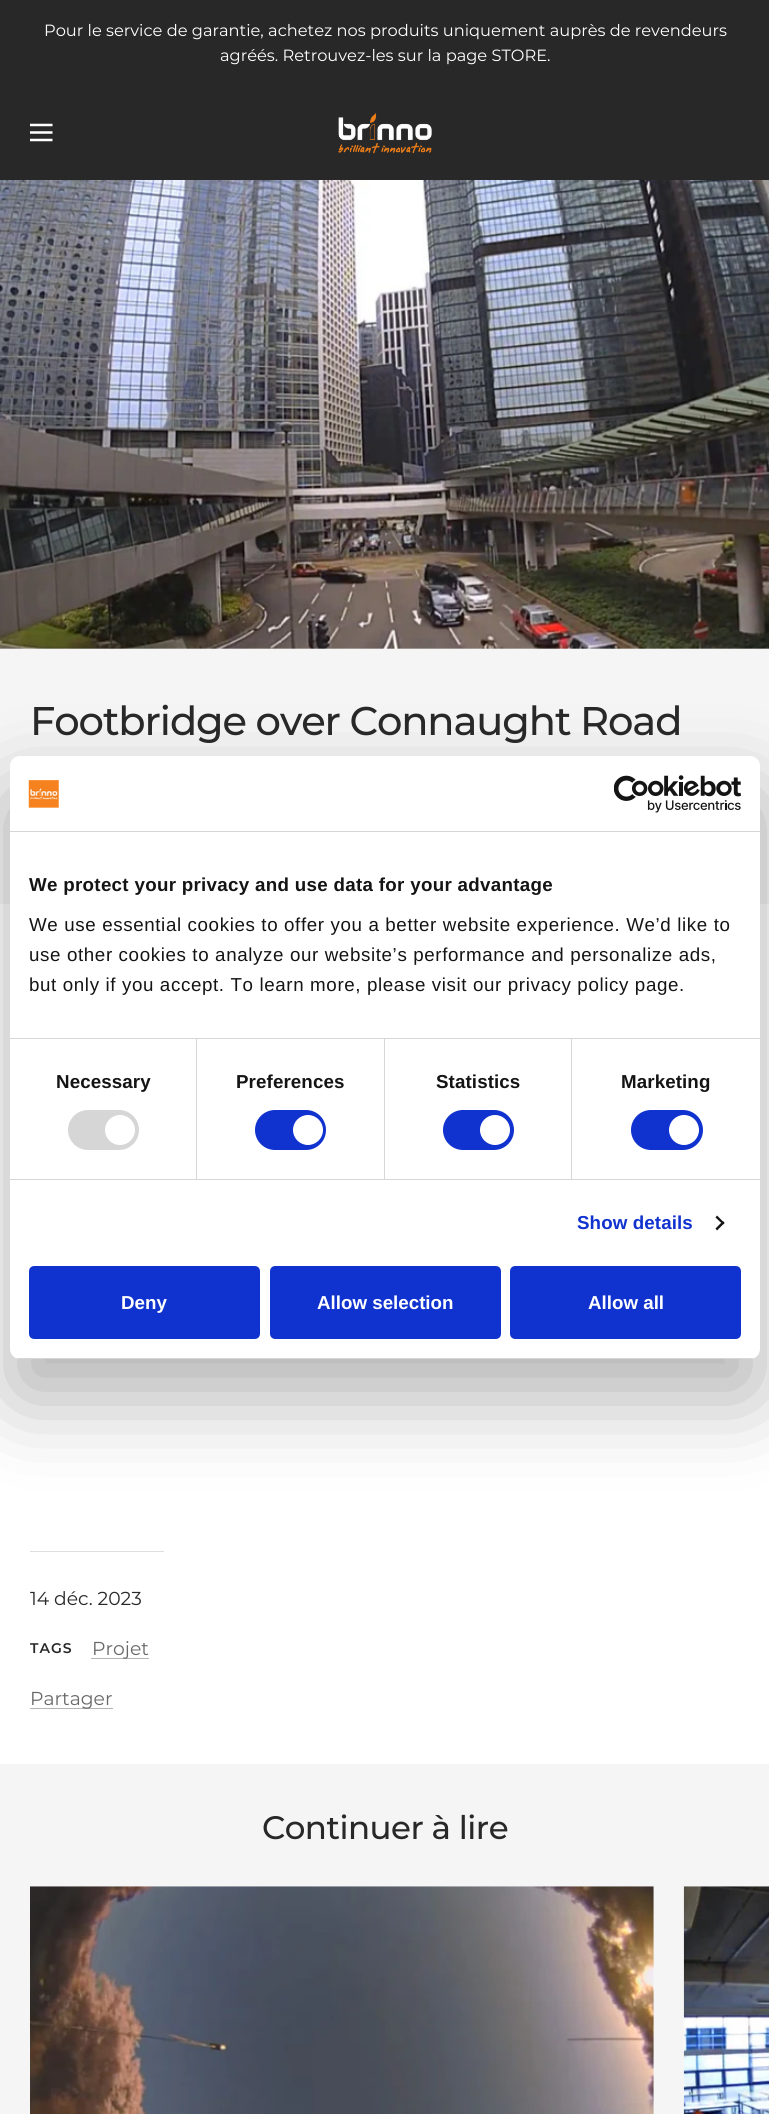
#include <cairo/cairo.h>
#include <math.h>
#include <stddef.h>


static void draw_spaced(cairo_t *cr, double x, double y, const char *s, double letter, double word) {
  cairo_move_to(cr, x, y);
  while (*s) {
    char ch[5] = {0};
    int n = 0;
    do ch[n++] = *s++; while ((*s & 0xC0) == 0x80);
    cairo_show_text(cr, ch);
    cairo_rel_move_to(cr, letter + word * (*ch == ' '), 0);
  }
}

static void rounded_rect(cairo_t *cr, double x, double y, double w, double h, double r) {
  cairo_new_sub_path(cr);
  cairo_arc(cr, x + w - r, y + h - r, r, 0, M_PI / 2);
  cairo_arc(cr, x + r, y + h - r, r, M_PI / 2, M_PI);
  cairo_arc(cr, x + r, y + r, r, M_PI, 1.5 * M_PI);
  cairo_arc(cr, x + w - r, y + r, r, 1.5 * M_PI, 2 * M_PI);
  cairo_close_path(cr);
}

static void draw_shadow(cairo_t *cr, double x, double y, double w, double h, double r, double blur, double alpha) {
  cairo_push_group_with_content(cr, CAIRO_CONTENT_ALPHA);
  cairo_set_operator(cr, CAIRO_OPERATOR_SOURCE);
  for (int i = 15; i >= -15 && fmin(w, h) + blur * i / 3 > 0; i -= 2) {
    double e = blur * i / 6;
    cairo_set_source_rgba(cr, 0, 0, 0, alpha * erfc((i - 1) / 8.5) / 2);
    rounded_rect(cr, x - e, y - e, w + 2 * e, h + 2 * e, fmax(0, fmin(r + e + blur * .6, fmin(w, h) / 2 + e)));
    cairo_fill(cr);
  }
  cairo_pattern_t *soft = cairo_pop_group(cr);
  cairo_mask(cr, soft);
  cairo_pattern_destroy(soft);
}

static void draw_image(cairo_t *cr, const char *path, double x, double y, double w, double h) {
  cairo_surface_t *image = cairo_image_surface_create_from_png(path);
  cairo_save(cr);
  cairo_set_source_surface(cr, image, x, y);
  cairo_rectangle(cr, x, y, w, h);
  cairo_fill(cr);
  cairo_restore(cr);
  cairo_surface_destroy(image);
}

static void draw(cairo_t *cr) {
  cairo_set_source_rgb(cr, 1, 1, 1);
  cairo_paint(cr);
  cairo_set_source_rgb(cr, 40 / 255.0, 40 / 255.0, 40 / 255.0);
  cairo_rectangle(cr, 0, 0, 769, 180);
  cairo_fill(cr);
  cairo_new_path(cr);
  cairo_move_to(cr, 30, 125);
  cairo_line_to(cr, 52.5, 125);
  cairo_move_to(cr, 30, 140);
  cairo_line_to(cr, 52.5, 140);
  cairo_close_path(cr);
  cairo_move_to(cr, 30, 132.5);
  cairo_line_to(cr, 52.5, 132.5);
  cairo_close_path(cr);
  cairo_set_source_rgb(cr, 1, 1, 1);
  cairo_set_line_width(cr, 2.5);
  cairo_stroke(cr);
  draw_image(cr, "images/1.png", 338, 113, 94, 41);
  cairo_set_source_rgb(cr, 245 / 255.0, 245 / 255.0, 245 / 255.0);
  cairo_rectangle(cr, 0, 648, 769, 256);
  cairo_fill(cr);
  draw_image(cr, "images/2.png", 0, 180, 769, 469);
  cairo_set_source_rgb(cr, 223 / 255.0, 223 / 255.0, 223 / 255.0);
  cairo_rectangle(cr, 30, 1551, 134, 1);
  cairo_fill(cr);
  cairo_set_source_rgb(cr, 180 / 255.0, 180 / 255.0, 180 / 255.0);
  cairo_rectangle(cr, 91, 1658, 58, 1);
  cairo_fill(cr);
  cairo_rectangle(cr, 30, 1708, 83, 1);
  cairo_fill(cr);
  cairo_set_source_rgb(cr, 245 / 255.0, 245 / 255.0, 245 / 255.0);
  cairo_rectangle(cr, 0, 1764, 769, 350);
  cairo_fill(cr);
  draw_image(cr, "images/3.png", 30, 1886, 624, 228);
  draw_image(cr, "images/4.png", 683, 1886, 86, 228);
  cairo_set_source_rgb(cr, 0, 0, 0);
  draw_shadow(cr, 10, 796, 750, 603, 10, 42.5, 0.3);
  cairo_set_source_rgb(cr, 1, 1, 1);
  rounded_rect(cr, 10, 756, 750, 603, 10);
  cairo_fill(cr);
  cairo_set_source_rgb(cr, 214 / 255.0, 214 / 255.0, 214 / 255.0);
  cairo_rectangle(cr, 10, 831, 750, 1);
  cairo_fill(cr);
  draw_image(cr, "images/5.png", 28, 780, 31, 28);
  draw_image(cr, "images/6.png", 614, 775, 127, 38);
  cairo_rectangle(cr, 10, 1038, 750, 1);
  cairo_fill(cr);
  cairo_rectangle(cr, 10, 1179, 750, 1);
  cairo_fill(cr);
  cairo_rectangle(cr, 196, 1039, 1, 140);
  cairo_fill(cr);
  rounded_rect(cr, 68, 1110, 71, 40, 20);
  cairo_fill(cr);
  cairo_set_source_rgb(cr, 1, 1, 1);
  cairo_arc(cr, 120, 1130, 15, 0, 2 * M_PI);
  cairo_fill(cr);
  cairo_set_source_rgb(cr, 214 / 255.0, 214 / 255.0, 214 / 255.0);
  cairo_rectangle(cr, 384, 1039, 1, 140);
  cairo_fill(cr);
  cairo_set_source_rgb(cr, 16 / 255.0, 50 / 255.0, 207 / 255.0);
  rounded_rect(cr, 255, 1110, 71, 40, 20);
  cairo_fill(cr);
  cairo_set_source_rgb(cr, 1, 1, 1);
  cairo_arc(cr, 308, 1130, 15, 0, 2 * M_PI);
  cairo_fill(cr);
  cairo_set_source_rgb(cr, 214 / 255.0, 214 / 255.0, 214 / 255.0);
  cairo_rectangle(cr, 571, 1039, 1, 140);
  cairo_fill(cr);
  cairo_set_source_rgb(cr, 16 / 255.0, 50 / 255.0, 207 / 255.0);
  rounded_rect(cr, 443, 1110, 71, 40, 20);
  cairo_fill(cr);
  cairo_set_source_rgb(cr, 1, 1, 1);
  cairo_arc(cr, 495, 1130, 15, 0, 2 * M_PI);
  cairo_fill(cr);
  cairo_set_source_rgb(cr, 16 / 255.0, 50 / 255.0, 207 / 255.0);
  rounded_rect(cr, 631, 1110, 72, 40, 20);
  cairo_fill(cr);
  cairo_set_source_rgb(cr, 1, 1, 1);
  cairo_arc(cr, 684, 1130, 15, 0, 2 * M_PI);
  cairo_fill(cr);
  cairo_set_source_rgb(cr, 20 / 255.0, 20 / 255.0, 20 / 255.0);
  cairo_new_path(cr);
  cairo_move_to(cr, 717, 1215.5);
  cairo_line_to(cr, 724.5, 1223);
  cairo_line_to(cr, 723, 1224.5);
  cairo_line_to(cr, 715.5, 1217.5);
  cairo_close_path(cr);
  cairo_fill(cr);
  cairo_new_path(cr);
  cairo_move_to(cr, 723, 1221);
  cairo_line_to(cr, 724.5, 1223);
  cairo_line_to(cr, 717, 1230.5);
  cairo_line_to(cr, 715.5, 1228.5);
  cairo_close_path(cr);
  cairo_fill(cr);
  cairo_save(cr);
  rounded_rect(cr, 10, 756, 750, 603, 10);
  cairo_clip(cr);
  cairo_set_source_rgb(cr, 214 / 255.0, 214 / 255.0, 214 / 255.0);
  cairo_rectangle(cr, 10, 1358, 750, 1);
  cairo_fill(cr);
  cairo_restore(cr);
  cairo_set_source_rgb(cr, 16 / 255.0, 50 / 255.0, 207 / 255.0);
  rounded_rect(cr, 30.5, 1267.5, 228, 70, 3.5);
  cairo_fill_preserve(cr);
  cairo_set_line_width(cr, 3);
  cairo_stroke(cr);
  rounded_rect(cr, 271.5, 1267.5, 228, 70, 3.5);
  cairo_fill_preserve(cr);
  cairo_stroke(cr);
  rounded_rect(cr, 511.5, 1267.5, 228, 70, 3.5);
  cairo_fill_preserve(cr);
  cairo_stroke(cr);
  cairo_select_font_face(cr, "Montserrat", CAIRO_FONT_SLANT_NORMAL, CAIRO_FONT_WEIGHT_NORMAL);
  cairo_set_font_size(cr, 16.25);
  cairo_set_source_rgb(cr, 1, 1, 1);
  cairo_move_to(cr, 44, 36);
  cairo_show_text(cr, "Pour le service de garantie, achetez nos produits uniquement auprès de revendeurs");
  cairo_move_to(cr, 220, 61);
  cairo_show_text(cr, "agréés. Retrouvez-les sur la page STORE.");
  cairo_select_font_face(cr, "Montserrat Medium", CAIRO_FONT_SLANT_NORMAL, CAIRO_FONT_WEIGHT_NORMAL);
  cairo_set_font_size(cr, 40);
  cairo_set_source_rgb(cr, 40 / 255.0, 40 / 255.0, 40 / 255.0);
  draw_spaced(cr, 30, 735, "Footbridge over Connaught Road", -1.1, 0);
  cairo_select_font_face(cr, "Montserrat", CAIRO_FONT_SLANT_NORMAL, CAIRO_FONT_WEIGHT_NORMAL);
  cairo_set_font_size(cr, 18.75);
  cairo_move_to(cr, 30, 1605);
  cairo_show_text(cr, "14 déc. 2023");
  cairo_select_font_face(cr, "Montserrat SemiBold", CAIRO_FONT_SLANT_NORMAL, CAIRO_FONT_WEIGHT_NORMAL);
  cairo_set_font_size(cr, 14);
  draw_spaced(cr, 30, 1653, "TAGS", 1, 0);
  cairo_select_font_face(cr, "Montserrat", CAIRO_FONT_SLANT_NORMAL, CAIRO_FONT_WEIGHT_NORMAL);
  cairo_set_font_size(cr, 18.75);
  cairo_set_source_rgb(cr, 104 / 255.0, 104 / 255.0, 104 / 255.0);
  cairo_move_to(cr, 92, 1655);
  cairo_show_text(cr, "Projet");
  cairo_move_to(cr, 30, 1705);
  cairo_show_text(cr, "Partager");
  cairo_select_font_face(cr, "Montserrat Medium", CAIRO_FONT_SLANT_NORMAL, CAIRO_FONT_WEIGHT_NORMAL);
  cairo_set_font_size(cr, 32.5);
  cairo_set_source_rgb(cr, 40 / 255.0, 40 / 255.0, 40 / 255.0);
  draw_spaced(cr, 262, 1839, "Continuer à lire", -0.5, 0);
  cairo_select_font_face(cr, "Liberation Sans", CAIRO_FONT_SLANT_NORMAL, CAIRO_FONT_WEIGHT_BOLD);
  cairo_set_font_size(cr, 18.75);
  cairo_set_source_rgb(cr, 20 / 255.0, 20 / 255.0, 20 / 255.0);
  draw_spaced(cr, 29, 891, "We protect your privacy and use data for your advantage", 0.3, 0);
  cairo_select_font_face(cr, "Liberation Sans", CAIRO_FONT_SLANT_NORMAL, CAIRO_FONT_WEIGHT_NORMAL);
  draw_spaced(cr, 29, 931, "We use essential cookies to offer you a better website experience. We’d like to", 0.62, 0);
  draw_spaced(cr, 29, 961, "use other cookies to analyze our website’s performance and personalize ads,", 0.62, 0);
  draw_spaced(cr, 29, 991, "but only if you accept. To learn more, please visit our privacy policy page.", 0.62, 0);
  cairo_select_font_face(cr, "Liberation Sans", CAIRO_FONT_SLANT_NORMAL, CAIRO_FONT_WEIGHT_BOLD);
  draw_spaced(cr, 56, 1088, "Necessary", 0.1, 0);
  draw_spaced(cr, 236, 1088, "Preferences", 0.1, 0);
  draw_spaced(cr, 436, 1088, "Statistics", 0.1, 0);
  draw_spaced(cr, 621, 1088, "Marketing", 0.1, 0);
  cairo_set_source_rgb(cr, 16 / 255.0, 50 / 255.0, 207 / 255.0);
  draw_spaced(cr, 577, 1229, "Show details", 0.1, 0);
  cairo_set_source_rgb(cr, 1, 1, 1);
  cairo_move_to(cr, 121, 1309);
  cairo_show_text(cr, "Deny");
  cairo_move_to(cr, 317, 1309);
  cairo_show_text(cr, "Allow selection");
  cairo_move_to(cr, 588, 1309);
  cairo_show_text(cr, "Allow all");
}

int main(void) {
  cairo_surface_t *surface = cairo_image_surface_create(CAIRO_FORMAT_RGB24, 769, 2114);
  cairo_t *cr = cairo_create(surface);
  cairo_font_options_t *options = cairo_font_options_create();
  cairo_font_options_set_hint_metrics(options, CAIRO_HINT_METRICS_OFF);
  cairo_font_options_set_hint_style(options, CAIRO_HINT_STYLE_NONE);
  cairo_set_font_options(cr, options);
  cairo_set_miter_limit(cr, 4);
  draw(cr);
  cairo_surface_write_to_png(surface, "out.png");
  cairo_font_options_destroy(options);
  cairo_destroy(cr);
  cairo_surface_destroy(surface);
  return 0;
}
